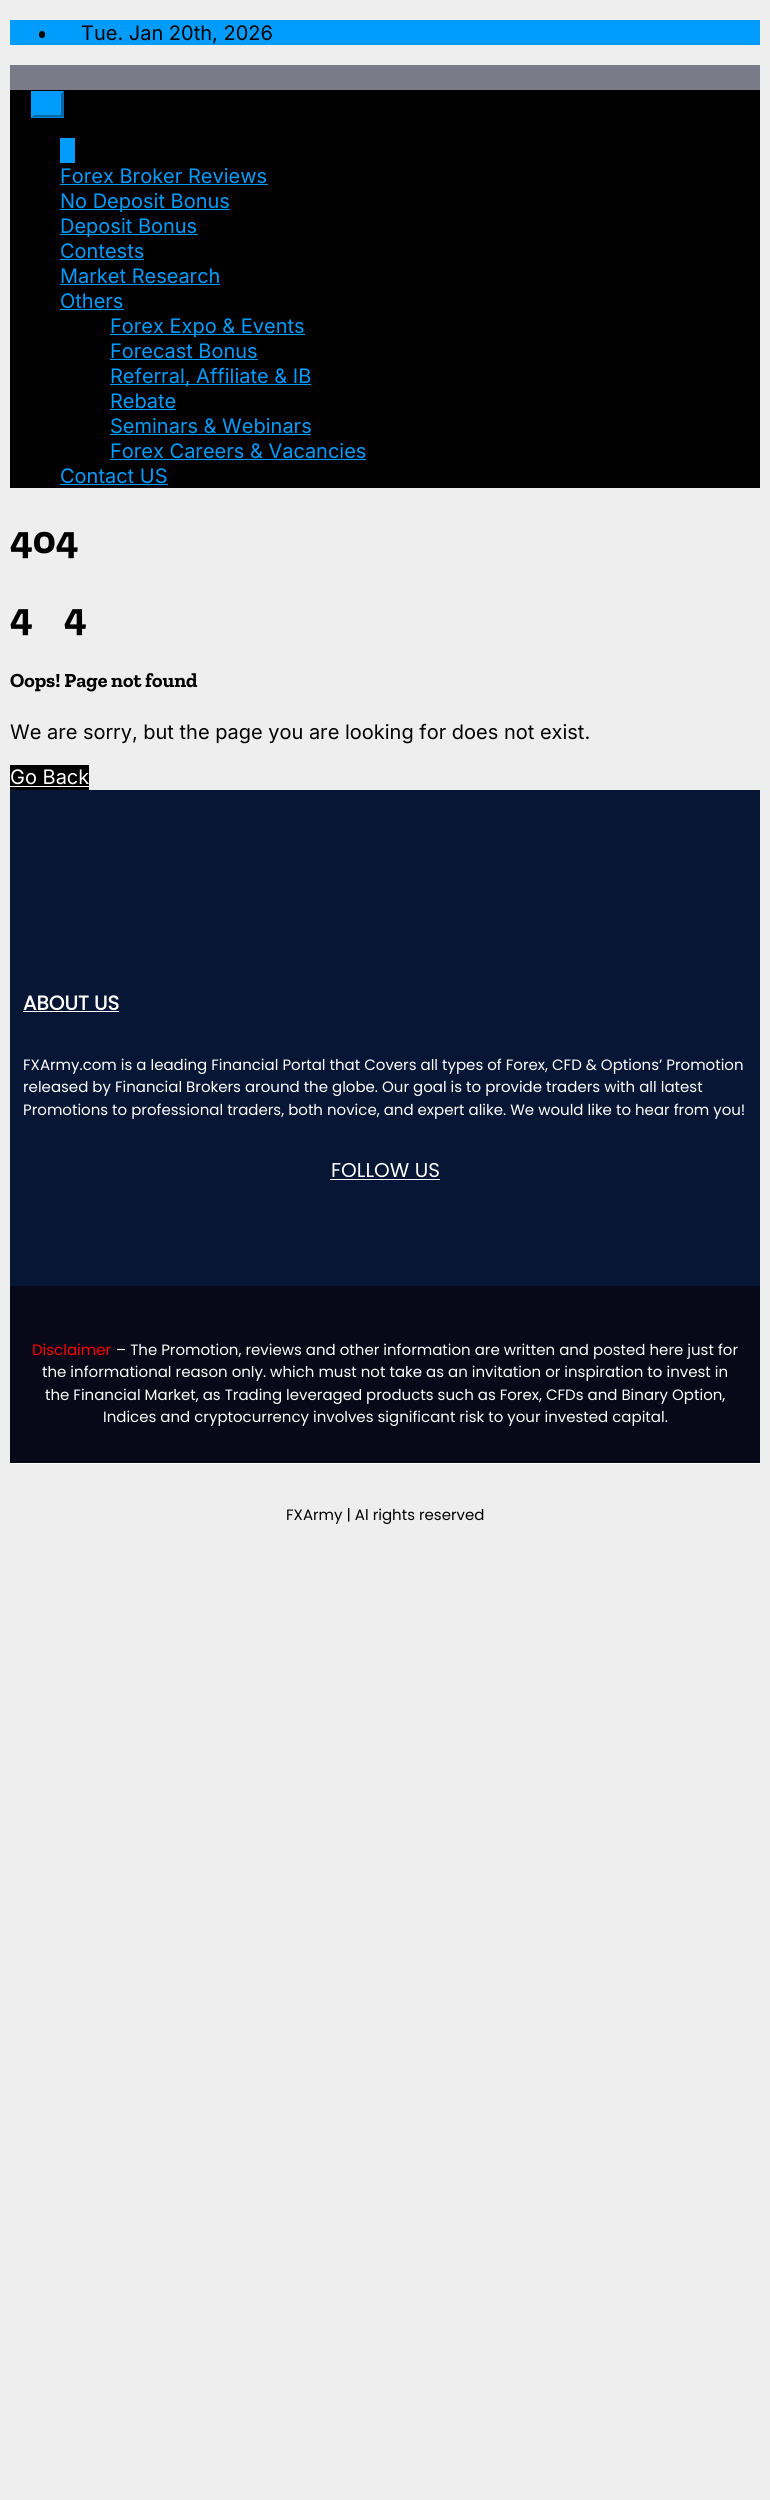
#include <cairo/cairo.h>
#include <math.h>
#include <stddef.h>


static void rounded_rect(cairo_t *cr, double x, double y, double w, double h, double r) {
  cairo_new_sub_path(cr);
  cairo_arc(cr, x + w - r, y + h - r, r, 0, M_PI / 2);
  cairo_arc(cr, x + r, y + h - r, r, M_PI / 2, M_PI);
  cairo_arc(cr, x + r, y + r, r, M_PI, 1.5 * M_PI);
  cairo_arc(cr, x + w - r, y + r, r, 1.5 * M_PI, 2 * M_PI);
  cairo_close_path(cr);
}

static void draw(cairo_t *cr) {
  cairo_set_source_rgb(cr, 238 / 255.0, 238 / 255.0, 238 / 255.0);
  cairo_paint(cr);
  cairo_set_source_rgb(cr, 0, 156 / 255.0, 252 / 255.0);
  cairo_rectangle(cr, 10, 20, 750, 25);
  cairo_fill(cr);
  cairo_set_source_rgb(cr, 0, 0, 0);
  rounded_rect(cr, 39, 31, 6, 7, 3);
  cairo_fill(cr);
  cairo_set_source_rgb(cr, 122 / 255.0, 122 / 255.0, 137 / 255.0);
  cairo_rectangle(cr, 10, 65, 750, 25);
  cairo_fill(cr);
  cairo_set_source_rgb(cr, 0, 0, 0);
  cairo_rectangle(cr, 10, 90, 750, 398);
  cairo_fill(cr);
  cairo_set_source_rgb(cr, 0, 156 / 255.0, 252 / 255.0);
  cairo_rectangle(cr, 31, 91, 33, 27);
  cairo_fill(cr);
  cairo_set_source_rgb(cr, 0, 104 / 255.0, 168 / 255.0);
  cairo_new_path(cr);
  cairo_move_to(cr, 64, 91);
  cairo_line_to(cr, 64, 117.5);
  cairo_line_to(cr, 61, 115);
  cairo_line_to(cr, 61, 94);
  cairo_close_path(cr);
  cairo_fill(cr);
  cairo_new_path(cr);
  cairo_move_to(cr, 64, 117.5);
  cairo_line_to(cr, 31, 117.5);
  cairo_line_to(cr, 34, 115);
  cairo_line_to(cr, 61, 115);
  cairo_close_path(cr);
  cairo_fill(cr);
  cairo_set_source_rgb(cr, 0, 156 / 255.0, 252 / 255.0);
  cairo_new_path(cr);
  cairo_move_to(cr, 31, 117.5);
  cairo_line_to(cr, 31, 91);
  cairo_line_to(cr, 34, 94);
  cairo_line_to(cr, 34, 115);
  cairo_close_path(cr);
  cairo_fill(cr);
  cairo_rectangle(cr, 60, 138, 15, 25);
  cairo_fill(cr);
  cairo_rectangle(cr, 60, 184, 208, 1);
  cairo_fill(cr);
  cairo_rectangle(cr, 60, 209, 170, 1);
  cairo_fill(cr);
  cairo_rectangle(cr, 60, 234, 138, 1);
  cairo_fill(cr);
  cairo_rectangle(cr, 60, 259, 84, 1);
  cairo_fill(cr);
  cairo_rectangle(cr, 60, 284, 160, 1);
  cairo_fill(cr);
  cairo_rectangle(cr, 60, 309, 64, 1);
  cairo_fill(cr);
  cairo_rectangle(cr, 110, 334, 195, 1);
  cairo_fill(cr);
  cairo_rectangle(cr, 110, 359, 148, 1);
  cairo_fill(cr);
  cairo_rectangle(cr, 110, 384, 201, 1);
  cairo_fill(cr);
  cairo_rectangle(cr, 110, 409, 66, 1);
  cairo_fill(cr);
  cairo_rectangle(cr, 110, 434, 201, 1);
  cairo_fill(cr);
  cairo_rectangle(cr, 110, 459, 256, 1);
  cairo_fill(cr);
  cairo_rectangle(cr, 60, 484, 108, 1);
  cairo_fill(cr);
  cairo_set_source_rgb(cr, 0, 0, 0);
  cairo_rectangle(cr, 10, 765, 79, 25);
  cairo_fill(cr);
  cairo_set_source_rgb(cr, 1, 1, 1);
  cairo_rectangle(cr, 10, 786, 79, 1);
  cairo_fill(cr);
  cairo_set_source_rgb(cr, 8 / 255.0, 22 / 255.0, 54 / 255.0);
  cairo_rectangle(cr, 10, 790, 750, 496);
  cairo_fill(cr);
  cairo_set_source_rgb(cr, 1, 1, 1);
  cairo_rectangle(cr, 23, 1011, 96, 1);
  cairo_fill(cr);
  cairo_rectangle(cr, 330, 1179, 110, 1);
  cairo_fill(cr);
  cairo_set_source_rgb(cr, 9 / 255.0, 8 / 255.0, 24 / 255.0);
  cairo_rectangle(cr, 10, 1286, 750, 177);
  cairo_fill(cr);
  cairo_set_source_rgb(cr, 1, 1, 1);
  cairo_rectangle(cr, 10, 1463, 750, 1);
  cairo_fill(cr);
  cairo_select_font_face(cr, "Inter", CAIRO_FONT_SLANT_NORMAL, CAIRO_FONT_WEIGHT_NORMAL);
  cairo_set_font_size(cr, 20);
  cairo_set_source_rgb(cr, 0, 0, 0);
  cairo_move_to(cr, 81, 40);
  cairo_show_text(cr, "Tue. Jan 20th, 2026");
  cairo_set_source_rgb(cr, 0, 156 / 255.0, 252 / 255.0);
  cairo_move_to(cr, 60, 183);
  cairo_show_text(cr, "Forex Broker Reviews");
  cairo_move_to(cr, 60, 208);
  cairo_show_text(cr, "No Deposit Bonus");
  cairo_move_to(cr, 60, 233);
  cairo_show_text(cr, "Deposit Bonus");
  cairo_move_to(cr, 60, 258);
  cairo_show_text(cr, "Contests");
  cairo_move_to(cr, 60, 283);
  cairo_show_text(cr, "Market Research");
  cairo_move_to(cr, 60, 308);
  cairo_show_text(cr, "Others");
  cairo_move_to(cr, 110, 333);
  cairo_show_text(cr, "Forex Expo & Events");
  cairo_move_to(cr, 110, 358);
  cairo_show_text(cr, "Forecast Bonus");
  cairo_move_to(cr, 110, 383);
  cairo_show_text(cr, "Referral, Affiliate & IB");
  cairo_move_to(cr, 110, 408);
  cairo_show_text(cr, "Rebate");
  cairo_move_to(cr, 110, 433);
  cairo_show_text(cr, "Seminars & Webinars");
  cairo_move_to(cr, 110, 458);
  cairo_show_text(cr, "Forex Careers & Vacancies");
  cairo_move_to(cr, 60, 483);
  cairo_show_text(cr, "Contact US");
  cairo_select_font_face(cr, "Zilla Slab", CAIRO_FONT_SLANT_NORMAL, CAIRO_FONT_WEIGHT_BOLD);
  cairo_set_font_size(cr, 40);
  cairo_set_source_rgb(cr, 0, 0, 0);
  cairo_move_to(cr, 10, 553);
  cairo_show_text(cr, "404");
  cairo_move_to(cr, 10, 630);
  cairo_show_text(cr, "4");
  cairo_move_to(cr, 64, 630);
  cairo_show_text(cr, "4");
  cairo_set_font_size(cr, 20);
  cairo_move_to(cr, 10, 687);
  cairo_show_text(cr, "Oops! Page not found");
  cairo_select_font_face(cr, "Inter", CAIRO_FONT_SLANT_NORMAL, CAIRO_FONT_WEIGHT_NORMAL);
  cairo_move_to(cr, 10, 739);
  cairo_show_text(cr, "We are sorry, but the page you are looking for does not exist.");
  cairo_set_source_rgb(cr, 1, 1, 1);
  cairo_move_to(cr, 10, 784);
  cairo_show_text(cr, "Go Back");
  cairo_select_font_face(cr, "Poppins", CAIRO_FONT_SLANT_NORMAL, CAIRO_FONT_WEIGHT_BOLD);
  cairo_move_to(cr, 23, 1010);
  cairo_show_text(cr, "ABOUT US");
  cairo_select_font_face(cr, "Poppins", CAIRO_FONT_SLANT_NORMAL, CAIRO_FONT_WEIGHT_NORMAL);
  cairo_set_font_size(cr, 15);
  cairo_move_to(cr, 23, 1070);
  cairo_show_text(cr, "FXArmy.com is a leading Financial Portal that Covers all types of Forex, CFD & Options’ Promotion");
  cairo_move_to(cr, 23, 1092);
  cairo_show_text(cr, "released by Financial Brokers around the globe. Our goal is to provide traders with all latest");
  cairo_move_to(cr, 23, 1115);
  cairo_show_text(cr, "Promotions to professional traders, both novice, and expert alike. We would like to hear from you!");
  cairo_set_font_size(cr, 20);
  cairo_move_to(cr, 331, 1177);
  cairo_show_text(cr, "FOLLOW US");
  cairo_set_font_size(cr, 15);
  cairo_set_source_rgb(cr, 1, 0, 0);
  cairo_move_to(cr, 32, 1355);
  cairo_show_text(cr, "Disclaimer");
  cairo_set_source_rgb(cr, 1, 1, 1);
  cairo_move_to(cr, 116, 1355);
  cairo_show_text(cr, "– The Promotion, reviews and other information are written and posted here just for");
  cairo_move_to(cr, 42, 1377);
  cairo_show_text(cr, "the informational reason only. which must not take as an invitation or inspiration to invest in");
  cairo_move_to(cr, 45, 1400);
  cairo_show_text(cr, "the Financial Market, as Trading leveraged products such as Forex, CFDs and Binary Option,");
  cairo_move_to(cr, 103, 1422);
  cairo_show_text(cr, "Indices and cryptocurrency involves significant risk to your invested capital.");
  cairo_set_source_rgb(cr, 0, 0, 0);
  cairo_move_to(cr, 286, 1520);
  cairo_show_text(cr, "FXArmy | Al rights reserved");
}

int main(void) {
  cairo_surface_t *surface = cairo_image_surface_create(CAIRO_FORMAT_RGB24, 770, 2500);
  cairo_t *cr = cairo_create(surface);
  cairo_font_options_t *options = cairo_font_options_create();
  cairo_font_options_set_hint_metrics(options, CAIRO_HINT_METRICS_OFF);
  cairo_font_options_set_hint_style(options, CAIRO_HINT_STYLE_NONE);
  cairo_set_font_options(cr, options);
  cairo_set_miter_limit(cr, 4);
  draw(cr);
  cairo_surface_write_to_png(surface, "out.png");
  cairo_font_options_destroy(options);
  cairo_destroy(cr);
  cairo_surface_destroy(surface);
  return 0;
}
